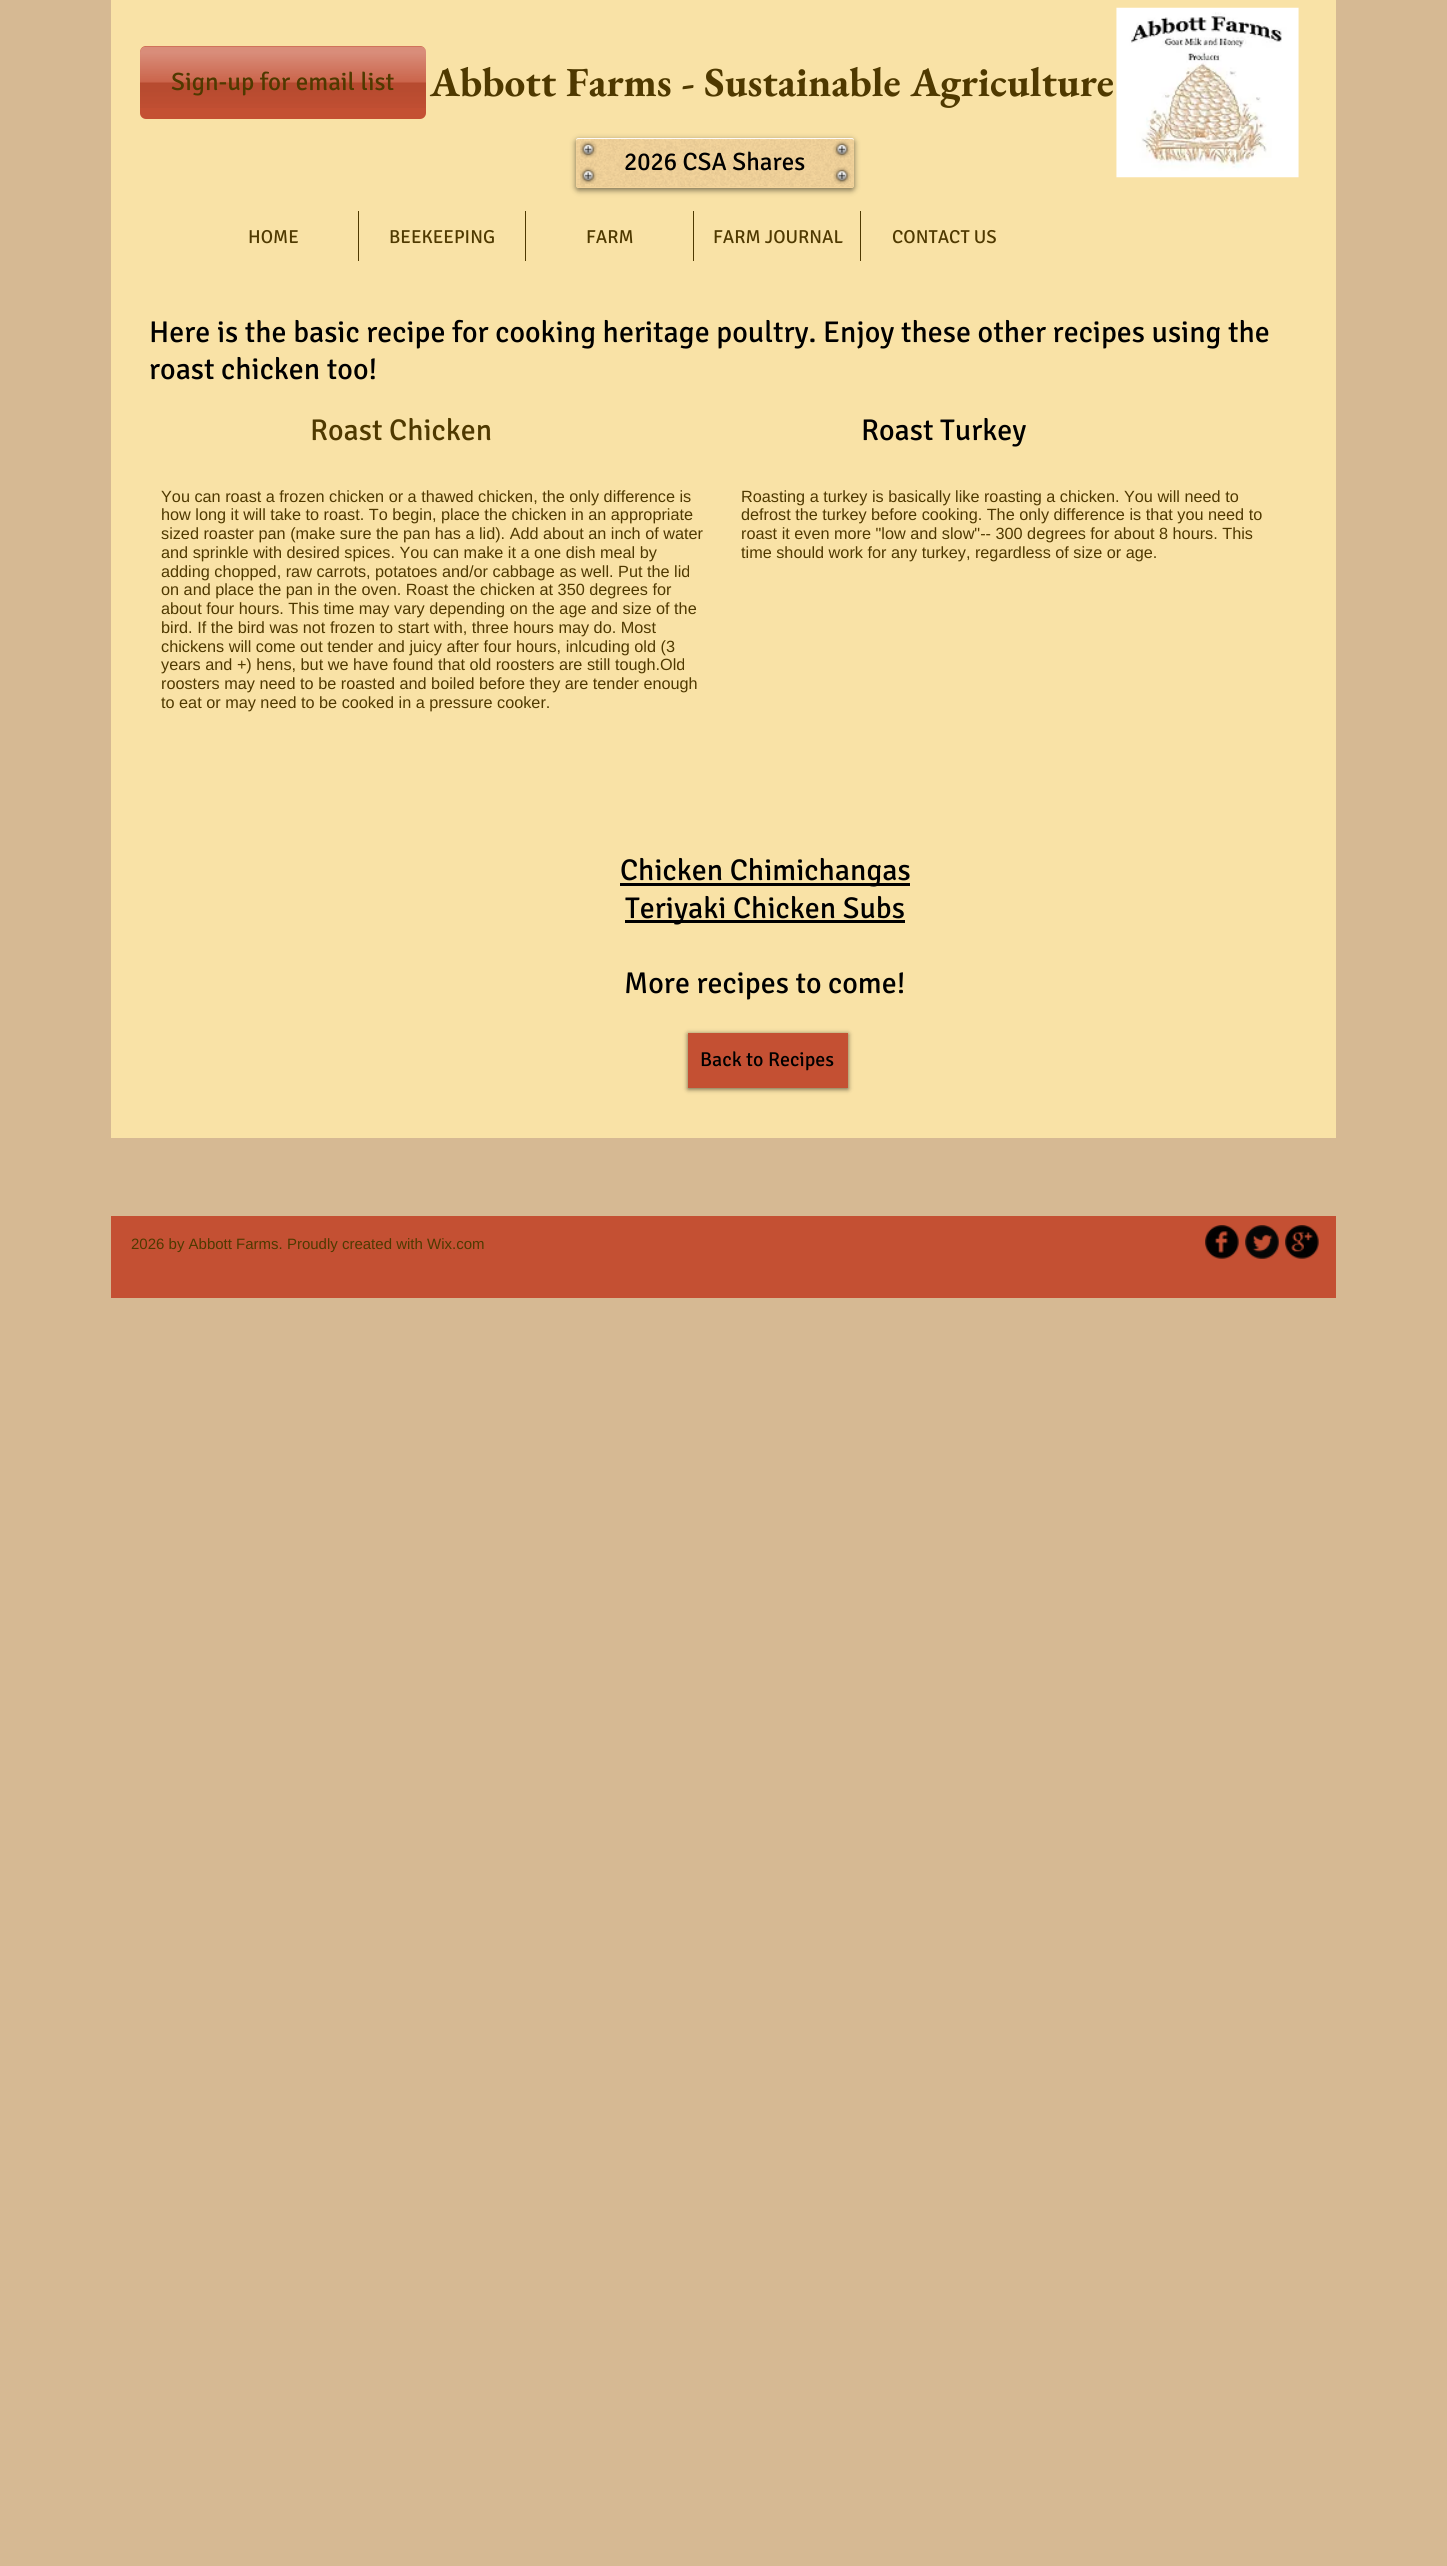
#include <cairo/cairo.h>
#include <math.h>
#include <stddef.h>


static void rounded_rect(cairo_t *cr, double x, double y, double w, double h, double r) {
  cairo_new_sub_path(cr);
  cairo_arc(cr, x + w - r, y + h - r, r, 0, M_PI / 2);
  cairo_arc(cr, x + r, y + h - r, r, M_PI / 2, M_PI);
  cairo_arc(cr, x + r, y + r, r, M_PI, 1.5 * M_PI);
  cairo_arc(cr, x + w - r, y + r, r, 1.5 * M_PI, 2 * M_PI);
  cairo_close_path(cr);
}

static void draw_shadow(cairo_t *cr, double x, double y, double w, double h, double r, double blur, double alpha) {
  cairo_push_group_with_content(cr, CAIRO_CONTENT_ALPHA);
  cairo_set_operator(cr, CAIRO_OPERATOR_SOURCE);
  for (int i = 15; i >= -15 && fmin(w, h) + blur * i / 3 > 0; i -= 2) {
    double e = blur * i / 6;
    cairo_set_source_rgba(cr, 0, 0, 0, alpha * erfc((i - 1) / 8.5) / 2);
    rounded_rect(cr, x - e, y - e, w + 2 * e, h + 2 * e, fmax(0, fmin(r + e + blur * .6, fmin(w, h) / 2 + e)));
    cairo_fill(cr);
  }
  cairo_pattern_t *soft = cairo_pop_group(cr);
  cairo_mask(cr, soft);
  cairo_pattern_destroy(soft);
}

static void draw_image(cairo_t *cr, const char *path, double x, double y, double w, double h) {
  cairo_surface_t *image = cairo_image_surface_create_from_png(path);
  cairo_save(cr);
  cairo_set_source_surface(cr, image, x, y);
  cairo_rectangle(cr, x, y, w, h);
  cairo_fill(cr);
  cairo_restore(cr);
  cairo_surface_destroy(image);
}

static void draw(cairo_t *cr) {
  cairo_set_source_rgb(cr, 214 / 255.0, 185 / 255.0, 147 / 255.0);
  cairo_paint(cr);
  cairo_set_source_rgb(cr, 249 / 255.0, 226 / 255.0, 166 / 255.0);
  cairo_rectangle(cr, 111, 0, 1225, 1138);
  cairo_fill(cr);
  cairo_set_source_rgb(cr, 196 / 255.0, 80 / 255.0, 51 / 255.0);
  rounded_rect(cr, 140, 46, 286, 73, 6);
  cairo_fill(cr);
  draw_image(cr, "images/1.png", 140, 46, 286, 62);
  draw_image(cr, "images/2.png", 1116, 7, 183, 171);
  cairo_save(cr);
  cairo_set_fill_rule(cr, CAIRO_FILL_RULE_EVEN_ODD);
  cairo_new_path(cr);
  cairo_move_to(cr, 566, 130);
  cairo_line_to(cr, 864, 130);
  cairo_line_to(cr, 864, 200);
  cairo_line_to(cr, 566, 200);
  cairo_close_path(cr);
  cairo_move_to(cr, 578.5, 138);
  cairo_line_to(cr, 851.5, 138);
  cairo_curve_to(cr, 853, 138, 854, 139, 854, 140.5);
  cairo_line_to(cr, 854, 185.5);
  cairo_curve_to(cr, 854, 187, 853, 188, 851.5, 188);
  cairo_line_to(cr, 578.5, 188);
  cairo_curve_to(cr, 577, 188, 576, 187, 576, 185.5);
  cairo_line_to(cr, 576, 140.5);
  cairo_curve_to(cr, 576, 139, 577, 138, 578.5, 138);
  cairo_close_path(cr);
  cairo_clip(cr);
  cairo_set_source_rgb(cr, 0, 0, 0);
  draw_shadow(cr, 576, 140, 278, 50, 2.5, 3, 0.53);
  cairo_restore(cr);
  cairo_set_source_rgba(cr, 196 / 255.0, 80 / 255.0, 51 / 255.0, 0.1);
  rounded_rect(cr, 576, 138, 278, 50, 2.5);
  cairo_fill(cr);
  draw_image(cr, "images/3.png", 576, 138, 278, 49);
  cairo_set_source_rgba(cr, 1, 1, 1, 0.92);
  cairo_new_path(cr);
  cairo_move_to(cr, 579, 139);
  cairo_line_to(cr, 851, 139);
  cairo_curve_to(cr, 853, 139, 854, 140, 854, 141);
  cairo_curve_to(cr, 854, 139, 853, 138, 852, 138);
  cairo_line_to(cr, 578, 138);
  cairo_curve_to(cr, 577, 138, 576, 139, 576, 141);
  cairo_curve_to(cr, 576, 140, 577, 139, 579, 139);
  cairo_close_path(cr);
  cairo_fill(cr);
  draw_image(cr, "images/4.png", 580, 141, 17, 17);
  draw_image(cr, "images/5.png", 833, 141, 18, 17);
  draw_image(cr, "images/6.png", 580, 167, 17, 17);
  draw_image(cr, "images/7.png", 833, 167, 18, 17);
  cairo_set_source_rgb(cr, 79 / 255.0, 57 / 255.0, 0);
  cairo_rectangle(cr, 358, 211, 1, 50);
  cairo_fill(cr);
  cairo_rectangle(cr, 525, 211, 1, 50);
  cairo_fill(cr);
  cairo_rectangle(cr, 693, 211, 1, 50);
  cairo_fill(cr);
  cairo_rectangle(cr, 860, 211, 1, 50);
  cairo_fill(cr);
  cairo_set_source_rgb(cr, 0, 0, 0);
  cairo_rectangle(cr, 620, 883, 290, 3);
  cairo_fill(cr);
  cairo_rectangle(cr, 625, 920, 280, 3);
  cairo_fill(cr);
  cairo_set_source_rgb(cr, 0, 0, 0);
  draw_shadow(cr, 688, 1034, 160, 55, 0, 2.5, 0.6);
  cairo_set_source_rgb(cr, 196 / 255.0, 80 / 255.0, 51 / 255.0);
  cairo_rectangle(cr, 688, 1033, 160, 55);
  cairo_fill(cr);
  cairo_rectangle(cr, 111, 1216, 1225, 82);
  cairo_fill(cr);
  draw_image(cr, "images/8.png", 1205, 1225, 34, 34);
  draw_image(cr, "images/9.png", 1245, 1225, 34, 34);
  draw_image(cr, "images/10.png", 1285, 1225, 34, 34);
  cairo_select_font_face(cr, "Signika", CAIRO_FONT_SLANT_NORMAL, CAIRO_FONT_WEIGHT_NORMAL);
  cairo_set_font_size(cr, 25);
  cairo_set_source_rgb(cr, 79 / 255.0, 57 / 255.0, 0);
  cairo_move_to(cr, 171, 90);
  cairo_show_text(cr, "Sign-up for email list");
  cairo_select_font_face(cr, "EB Garamond", CAIRO_FONT_SLANT_NORMAL, CAIRO_FONT_WEIGHT_BOLD);
  cairo_set_font_size(cr, 41.25);
  cairo_move_to(cr, 430, 96);
  cairo_show_text(cr, "Abbott Farms - Sustainable Agriculture");
  cairo_select_font_face(cr, "Signika", CAIRO_FONT_SLANT_NORMAL, CAIRO_FONT_WEIGHT_NORMAL);
  cairo_set_font_size(cr, 25);
  cairo_set_source_rgb(cr, 0, 0, 0);
  cairo_move_to(cr, 624, 170);
  cairo_show_text(cr, "2026 CSA Shares");
  cairo_set_font_size(cr, 18.75);
  cairo_set_source_rgb(cr, 79 / 255.0, 57 / 255.0, 0);
  cairo_move_to(cr, 248, 243);
  cairo_show_text(cr, "HOME");
  cairo_move_to(cr, 389, 243);
  cairo_show_text(cr, "BEEKEEPING");
  cairo_move_to(cr, 586, 243);
  cairo_show_text(cr, "FARM");
  cairo_move_to(cr, 713, 243);
  cairo_show_text(cr, "FARM JOURNAL");
  cairo_move_to(cr, 892, 243);
  cairo_show_text(cr, "CONTACT US");
  cairo_set_font_size(cr, 30);
  cairo_set_source_rgb(cr, 0, 0, 0);
  cairo_move_to(cr, 149, 342);
  cairo_show_text(cr, "Here is the basic recipe for cooking heritage poultry. Enjoy these other recipes using the");
  cairo_move_to(cr, 149, 379);
  cairo_show_text(cr, "roast chicken too!");
  cairo_set_source_rgb(cr, 79 / 255.0, 57 / 255.0, 0);
  cairo_move_to(cr, 310, 440);
  cairo_show_text(cr, "Roast Chicken");
  cairo_set_source_rgb(cr, 0, 0, 0);
  cairo_move_to(cr, 861, 440);
  cairo_show_text(cr, "Roast Turkey");
  cairo_select_font_face(cr, "Liberation Sans", CAIRO_FONT_SLANT_NORMAL, CAIRO_FONT_WEIGHT_NORMAL);
  cairo_set_font_size(cr, 16.25);
  cairo_set_source_rgb(cr, 79 / 255.0, 57 / 255.0, 0);
  cairo_move_to(cr, 161, 502);
  cairo_show_text(cr, "You can roast a frozen chicken or a thawed chicken, the only difference is");
  cairo_move_to(cr, 161, 520);
  cairo_show_text(cr, "how long it will take to roast. To begin, place the chicken in an appropriate");
  cairo_move_to(cr, 161, 539);
  cairo_show_text(cr, "sized roaster pan (make sure the pan has a lid). Add about an inch of water");
  cairo_move_to(cr, 161, 558);
  cairo_show_text(cr, "and sprinkle with desired spices. You can make it a one dish meal by");
  cairo_move_to(cr, 161, 577);
  cairo_show_text(cr, "adding chopped, raw carrots, potatoes and/or cabbage as well. Put the lid");
  cairo_move_to(cr, 161, 595);
  cairo_show_text(cr, "on and place the pan in the oven. Roast the chicken at 350 degrees for");
  cairo_move_to(cr, 161, 614);
  cairo_show_text(cr, "about four hours. This time may vary depending on the age and size of the");
  cairo_move_to(cr, 161, 633);
  cairo_show_text(cr, "bird. If the bird was not frozen to start with, three hours may do. Most");
  cairo_move_to(cr, 161, 652);
  cairo_show_text(cr, "chickens will come out tender and juicy after four hours, inlcuding old (3");
  cairo_move_to(cr, 161, 670);
  cairo_show_text(cr, "years and +) hens, but we have found that old roosters are still tough.Old");
  cairo_move_to(cr, 161, 689);
  cairo_show_text(cr, "roosters may need to be roasted and boiled before they are tender enough");
  cairo_move_to(cr, 161, 708);
  cairo_show_text(cr, "to eat or may need to be cooked in a pressure cooker.");
  cairo_move_to(cr, 741, 502);
  cairo_show_text(cr, "Roasting a turkey is basically like roasting a chicken. You will need to");
  cairo_move_to(cr, 741, 520);
  cairo_show_text(cr, "defrost the turkey before cooking. The only difference is that you need to");
  cairo_move_to(cr, 741, 539);
  cairo_show_text(cr, "roast it even more \"low and slow\"-- 300 degrees for about 8 hours. This");
  cairo_move_to(cr, 741, 558);
  cairo_show_text(cr, "time should work for any turkey, regardless of size or age.");
  cairo_select_font_face(cr, "Signika", CAIRO_FONT_SLANT_NORMAL, CAIRO_FONT_WEIGHT_NORMAL);
  cairo_set_font_size(cr, 30);
  cairo_set_source_rgb(cr, 0, 0, 0);
  cairo_move_to(cr, 620, 880);
  cairo_show_text(cr, "Chicken Chimichangas");
  cairo_move_to(cr, 625, 918);
  cairo_show_text(cr, "Teriyaki Chicken Subs");
  cairo_move_to(cr, 624, 993);
  cairo_show_text(cr, "More recipes to come!");
  cairo_set_font_size(cr, 20);
  cairo_move_to(cr, 700, 1066);
  cairo_show_text(cr, "Back to Recipes");
  cairo_select_font_face(cr, "Liberation Sans", CAIRO_FONT_SLANT_NORMAL, CAIRO_FONT_WEIGHT_NORMAL);
  cairo_set_font_size(cr, 15);
  cairo_set_source_rgb(cr, 79 / 255.0, 57 / 255.0, 0);
  cairo_move_to(cr, 131, 1249);
  cairo_show_text(cr, "2026 by Abbott Farms. Proudly created with Wix.com");
}

int main(void) {
  cairo_surface_t *surface = cairo_image_surface_create(CAIRO_FORMAT_RGB24, 1447, 2566);
  cairo_t *cr = cairo_create(surface);
  cairo_font_options_t *options = cairo_font_options_create();
  cairo_font_options_set_hint_metrics(options, CAIRO_HINT_METRICS_OFF);
  cairo_font_options_set_hint_style(options, CAIRO_HINT_STYLE_NONE);
  cairo_set_font_options(cr, options);
  cairo_set_miter_limit(cr, 4);
  draw(cr);
  cairo_surface_write_to_png(surface, "out.png");
  cairo_font_options_destroy(options);
  cairo_destroy(cr);
  cairo_surface_destroy(surface);
  return 0;
}
